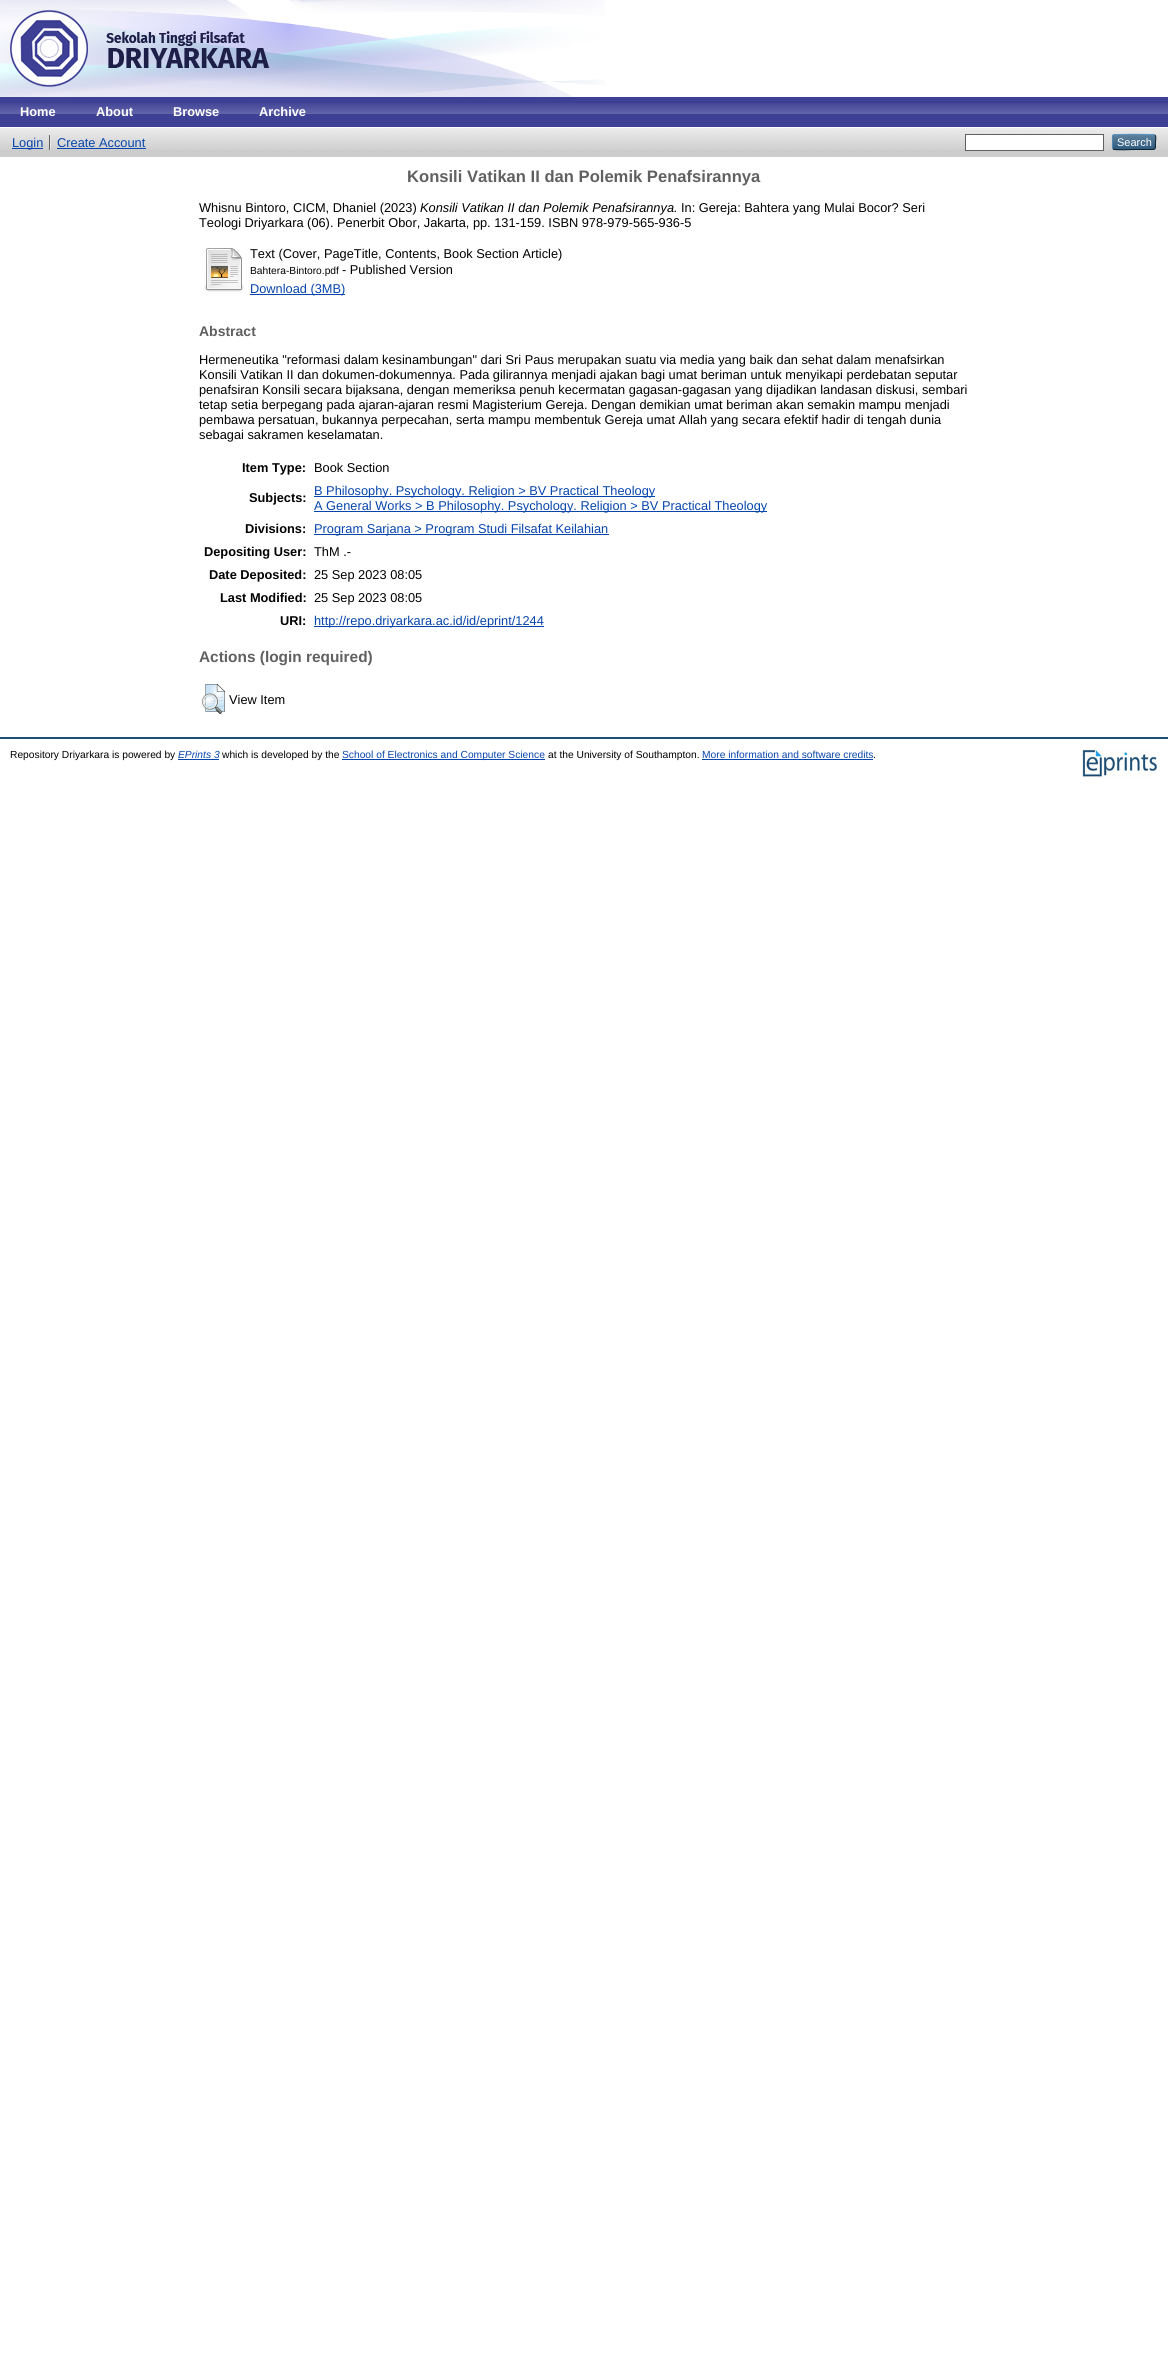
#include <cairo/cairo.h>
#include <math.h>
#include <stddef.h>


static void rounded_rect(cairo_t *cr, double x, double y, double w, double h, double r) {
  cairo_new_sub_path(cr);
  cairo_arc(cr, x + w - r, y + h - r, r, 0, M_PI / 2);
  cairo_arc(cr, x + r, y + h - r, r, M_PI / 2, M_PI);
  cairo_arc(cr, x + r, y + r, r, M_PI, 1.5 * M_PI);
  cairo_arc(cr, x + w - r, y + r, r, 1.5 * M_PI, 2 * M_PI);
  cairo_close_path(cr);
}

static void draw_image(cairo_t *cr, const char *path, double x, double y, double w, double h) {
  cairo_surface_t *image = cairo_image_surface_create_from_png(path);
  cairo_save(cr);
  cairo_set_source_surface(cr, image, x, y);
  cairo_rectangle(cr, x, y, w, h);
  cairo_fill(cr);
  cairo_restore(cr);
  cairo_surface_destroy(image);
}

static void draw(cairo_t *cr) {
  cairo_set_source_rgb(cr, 1, 1, 1);
  cairo_paint(cr);
  draw_image(cr, "images/1.png", 0, 0, 605, 97);
  draw_image(cr, "images/2.png", 10, 10, 260, 77);
  cairo_set_source_rgb(cr, 62 / 255.0, 64 / 255.0, 149 / 255.0);
  cairo_rectangle(cr, 0, 97, 1168, 30);
  cairo_fill(cr);
  draw_image(cr, "images/3.png", 0, 103, 1168, 11);
  cairo_set_source_rgb(cr, 204 / 255.0, 204 / 255.0, 204 / 255.0);
  cairo_rectangle(cr, 0, 128, 1168, 29);
  cairo_fill(cr);
  draw_image(cr, "images/4.png", 0, 128, 1168, 22);
  cairo_set_source_rgb(cr, 96 / 255.0, 96 / 255.0, 96 / 255.0);
  cairo_rectangle(cr, 49, 135, 1, 15);
  cairo_fill(cr);
  cairo_set_source_rgb(cr, 6 / 255.0, 69 / 255.0, 173 / 255.0);
  cairo_rectangle(cr, 12, 148, 31, 1);
  cairo_fill(cr);
  cairo_set_source_rgb(cr, 232 / 255.0, 232 / 255.0, 232 / 255.0);
  cairo_rectangle(cr, 50, 135, 1, 15);
  cairo_fill(cr);
  cairo_set_source_rgb(cr, 6 / 255.0, 69 / 255.0, 173 / 255.0);
  cairo_rectangle(cr, 57, 148, 89, 1);
  cairo_fill(cr);
  cairo_set_source_rgb(cr, 1, 1, 1);
  cairo_rectangle(cr, 965.5, 134.5, 138, 16);
  cairo_fill_preserve(cr);
  cairo_set_source_rgb(cr, 96 / 255.0, 96 / 255.0, 96 / 255.0);
  cairo_set_line_width(cr, 1);
  cairo_stroke(cr);
  cairo_set_source_rgb(cr, 31 / 255.0, 79 / 255.0, 118 / 255.0);
  rounded_rect(cr, 1112, 134, 44, 16, 3);
  cairo_fill(cr);
  draw_image(cr, "images/5.png", 1112, 134, 44, 16);
  cairo_new_path(cr);
  cairo_move_to(cr, 1113, 135);
  cairo_curve_to(cr, 1114.5, 134, 1153.5, 134, 1155, 135);
  cairo_set_source_rgb(cr, 91 / 255.0, 151 / 255.0, 199 / 255.0);
  cairo_stroke(cr);
  cairo_new_path(cr);
  cairo_move_to(cr, 1155, 135);
  cairo_curve_to(cr, 1156.5, 137, 1155.5, 140, 1155.5, 142);
  cairo_curve_to(cr, 1155.5, 150.5, 1156, 149.5, 1146.5, 149.5);
  cairo_line_to(cr, 1134, 149.5);
  cairo_curve_to(cr, 1131, 149.5, 1115, 150.5, 1113, 149);
  cairo_set_source_rgb(cr, 13 / 255.0, 33 / 255.0, 49 / 255.0);
  cairo_stroke(cr);
  cairo_new_path(cr);
  cairo_move_to(cr, 1113, 149);
  cairo_curve_to(cr, 1112, 147.5, 1112.5, 143.5, 1112.5, 142);
  cairo_curve_to(cr, 1112.5, 140.5, 1112, 136.5, 1113, 135);
  cairo_set_source_rgb(cr, 82 / 255.0, 135 / 255.0, 179 / 255.0);
  cairo_stroke(cr);
  draw_image(cr, "images/6.png", 204, 248, 40, 44);
  cairo_set_source_rgb(cr, 6 / 255.0, 69 / 255.0, 173 / 255.0);
  cairo_rectangle(cr, 250, 294, 95, 1);
  cairo_fill(cr);
  cairo_rectangle(cr, 314, 496, 341, 1);
  cairo_fill(cr);
  cairo_rectangle(cr, 314, 511, 453, 1);
  cairo_fill(cr);
  cairo_rectangle(cr, 314, 534, 295, 1);
  cairo_fill(cr);
  cairo_rectangle(cr, 314, 626, 230, 1);
  cairo_fill(cr);
  draw_image(cr, "images/7.png", 202, 684, 23, 30);
  cairo_set_source_rgb(cr, 32 / 255.0, 79 / 255.0, 118 / 255.0);
  cairo_rectangle(cr, 0, 737, 1168, 2);
  cairo_fill(cr);
  cairo_set_source_rgb(cr, 6 / 255.0, 69 / 255.0, 173 / 255.0);
  cairo_rectangle(cr, 178, 759, 41, 1);
  cairo_fill(cr);
  cairo_rectangle(cr, 342, 759, 203, 1);
  cairo_fill(cr);
  cairo_rectangle(cr, 702, 759, 171, 1);
  cairo_fill(cr);
  draw_image(cr, "images/8.png", 1081, 750, 76, 28);
  cairo_select_font_face(cr, "Liberation Sans", CAIRO_FONT_SLANT_NORMAL, CAIRO_FONT_WEIGHT_BOLD);
  cairo_set_font_size(cr, 12.8);
  cairo_set_source_rgb(cr, 1, 1, 1);
  cairo_move_to(cr, 20, 116);
  cairo_show_text(cr, "Home");
  cairo_move_to(cr, 96, 116);
  cairo_show_text(cr, "About");
  cairo_move_to(cr, 173, 116);
  cairo_show_text(cr, "Browse");
  cairo_move_to(cr, 259, 116);
  cairo_show_text(cr, "Archive");
  cairo_select_font_face(cr, "Liberation Sans", CAIRO_FONT_SLANT_NORMAL, CAIRO_FONT_WEIGHT_NORMAL);
  cairo_set_source_rgb(cr, 6 / 255.0, 69 / 255.0, 173 / 255.0);
  cairo_move_to(cr, 12, 147);
  cairo_show_text(cr, "Login");
  cairo_move_to(cr, 57, 147);
  cairo_show_text(cr, "Create Account");
  cairo_set_font_size(cr, 11);
  cairo_set_source_rgb(cr, 1, 1, 1);
  cairo_move_to(cr, 1117, 146);
  cairo_show_text(cr, "Search");
  cairo_select_font_face(cr, "Liberation Sans", CAIRO_FONT_SLANT_NORMAL, CAIRO_FONT_WEIGHT_BOLD);
  cairo_set_font_size(cr, 16.6);
  cairo_set_source_rgb(cr, 96 / 255.0, 96 / 255.0, 96 / 255.0);
  cairo_move_to(cr, 407, 182);
  cairo_show_text(cr, "Konsili Vatikan II dan Polemik Penafsirannya");
  cairo_select_font_face(cr, "Liberation Sans", CAIRO_FONT_SLANT_NORMAL, CAIRO_FONT_WEIGHT_NORMAL);
  cairo_set_font_size(cr, 12.8);
  cairo_set_source_rgb(cr, 0, 0, 0);
  cairo_move_to(cr, 199, 212);
  cairo_show_text(cr, "Whisnu Bintoro, CICM, Dhaniel (2023)");
  cairo_select_font_face(cr, "Liberation Sans", CAIRO_FONT_SLANT_ITALIC, CAIRO_FONT_WEIGHT_NORMAL);
  cairo_move_to(cr, 420, 212);
  cairo_show_text(cr, "Konsili Vatikan II dan Polemik Penafsirannya.");
  cairo_select_font_face(cr, "Liberation Sans", CAIRO_FONT_SLANT_NORMAL, CAIRO_FONT_WEIGHT_NORMAL);
  cairo_move_to(cr, 681, 212);
  cairo_show_text(cr, "In: Gereja: Bahtera yang Mulai Bocor? Seri");
  cairo_move_to(cr, 199, 227);
  cairo_show_text(cr, "Teologi Driyarkara (06). Penerbit Obor, Jakarta, pp. 131-159. ISBN 978-979-565-936-5");
  cairo_move_to(cr, 250, 258);
  cairo_show_text(cr, "Text (Cover, PageTitle, Contents, Book Section Article)");
  cairo_set_font_size(cr, 10.25);
  cairo_move_to(cr, 250, 274);
  cairo_show_text(cr, "Bahtera-Bintoro.pdf");
  cairo_set_font_size(cr, 12.8);
  cairo_move_to(cr, 342, 274);
  cairo_show_text(cr, "- Published Version");
  cairo_set_source_rgb(cr, 6 / 255.0, 69 / 255.0, 173 / 255.0);
  cairo_move_to(cr, 250, 293);
  cairo_show_text(cr, "Download (3MB)");
  cairo_select_font_face(cr, "Liberation Sans", CAIRO_FONT_SLANT_NORMAL, CAIRO_FONT_WEIGHT_BOLD);
  cairo_set_font_size(cr, 14);
  cairo_set_source_rgb(cr, 96 / 255.0, 96 / 255.0, 96 / 255.0);
  cairo_move_to(cr, 199, 336);
  cairo_show_text(cr, "Abstract");
  cairo_select_font_face(cr, "Liberation Sans", CAIRO_FONT_SLANT_NORMAL, CAIRO_FONT_WEIGHT_NORMAL);
  cairo_set_font_size(cr, 12.8);
  cairo_set_source_rgb(cr, 0, 0, 0);
  cairo_move_to(cr, 199, 364);
  cairo_show_text(cr, "Hermeneutika \"reformasi dalam kesinambungan\" dari Sri Paus merupakan suatu via media yang baik dan sehat dalam menafsirkan");
  cairo_move_to(cr, 199, 379);
  cairo_show_text(cr, "Konsili Vatikan II dan dokumen-dokumennya. Pada gilirannya menjadi ajakan bagi umat beriman untuk menyikapi perdebatan seputar");
  cairo_move_to(cr, 199, 394);
  cairo_show_text(cr, "penafsiran Konsili secara bijaksana, dengan memeriksa penuh kecermatan gagasan-gagasan yang dijadikan landasan diskusi, sembari");
  cairo_move_to(cr, 199, 409);
  cairo_show_text(cr, "tetap setia berpegang pada ajaran-ajaran resmi Magisterium Gereja. Dengan demikian umat beriman akan semakin mampu menjadi");
  cairo_move_to(cr, 199, 424);
  cairo_show_text(cr, "pembawa persatuan, bukannya perpecahan, serta mampu membentuk Gereja umat Allah yang secara efektif hadir di tengah dunia");
  cairo_move_to(cr, 199, 439);
  cairo_show_text(cr, "sebagai sakramen keselamatan.");
  cairo_select_font_face(cr, "Liberation Sans", CAIRO_FONT_SLANT_NORMAL, CAIRO_FONT_WEIGHT_BOLD);
  cairo_move_to(cr, 242, 472);
  cairo_show_text(cr, "Item Type:");
  cairo_select_font_face(cr, "Liberation Sans", CAIRO_FONT_SLANT_NORMAL, CAIRO_FONT_WEIGHT_NORMAL);
  cairo_move_to(cr, 314, 472);
  cairo_show_text(cr, "Book Section");
  cairo_select_font_face(cr, "Liberation Sans", CAIRO_FONT_SLANT_NORMAL, CAIRO_FONT_WEIGHT_BOLD);
  cairo_move_to(cr, 249, 502);
  cairo_show_text(cr, "Subjects:");
  cairo_select_font_face(cr, "Liberation Sans", CAIRO_FONT_SLANT_NORMAL, CAIRO_FONT_WEIGHT_NORMAL);
  cairo_set_source_rgb(cr, 6 / 255.0, 69 / 255.0, 173 / 255.0);
  cairo_move_to(cr, 314, 495);
  cairo_show_text(cr, "B Philosophy. Psychology. Religion > BV Practical Theology");
  cairo_move_to(cr, 314, 510);
  cairo_show_text(cr, "A General Works > B Philosophy. Psychology. Religion > BV Practical Theology");
  cairo_select_font_face(cr, "Liberation Sans", CAIRO_FONT_SLANT_NORMAL, CAIRO_FONT_WEIGHT_BOLD);
  cairo_set_source_rgb(cr, 0, 0, 0);
  cairo_move_to(cr, 245, 533);
  cairo_show_text(cr, "Divisions:");
  cairo_select_font_face(cr, "Liberation Sans", CAIRO_FONT_SLANT_NORMAL, CAIRO_FONT_WEIGHT_NORMAL);
  cairo_set_source_rgb(cr, 6 / 255.0, 69 / 255.0, 173 / 255.0);
  cairo_move_to(cr, 314, 533);
  cairo_show_text(cr, "Program Sarjana > Program Studi Filsafat Keilahian");
  cairo_select_font_face(cr, "Liberation Sans", CAIRO_FONT_SLANT_NORMAL, CAIRO_FONT_WEIGHT_BOLD);
  cairo_set_source_rgb(cr, 0, 0, 0);
  cairo_move_to(cr, 204, 556);
  cairo_show_text(cr, "Depositing User:");
  cairo_select_font_face(cr, "Liberation Sans", CAIRO_FONT_SLANT_NORMAL, CAIRO_FONT_WEIGHT_NORMAL);
  cairo_move_to(cr, 314, 556);
  cairo_show_text(cr, "ThM .-");
  cairo_select_font_face(cr, "Liberation Sans", CAIRO_FONT_SLANT_NORMAL, CAIRO_FONT_WEIGHT_BOLD);
  cairo_move_to(cr, 209, 579);
  cairo_show_text(cr, "Date Deposited:");
  cairo_select_font_face(cr, "Liberation Sans", CAIRO_FONT_SLANT_NORMAL, CAIRO_FONT_WEIGHT_NORMAL);
  cairo_move_to(cr, 314, 579);
  cairo_show_text(cr, "25 Sep 2023 08:05");
  cairo_select_font_face(cr, "Liberation Sans", CAIRO_FONT_SLANT_NORMAL, CAIRO_FONT_WEIGHT_BOLD);
  cairo_move_to(cr, 220, 602);
  cairo_show_text(cr, "Last Modified:");
  cairo_select_font_face(cr, "Liberation Sans", CAIRO_FONT_SLANT_NORMAL, CAIRO_FONT_WEIGHT_NORMAL);
  cairo_move_to(cr, 314, 602);
  cairo_show_text(cr, "25 Sep 2023 08:05");
  cairo_select_font_face(cr, "Liberation Sans", CAIRO_FONT_SLANT_NORMAL, CAIRO_FONT_WEIGHT_BOLD);
  cairo_move_to(cr, 280, 625);
  cairo_show_text(cr, "URI:");
  cairo_select_font_face(cr, "Liberation Sans", CAIRO_FONT_SLANT_NORMAL, CAIRO_FONT_WEIGHT_NORMAL);
  cairo_set_source_rgb(cr, 6 / 255.0, 69 / 255.0, 173 / 255.0);
  cairo_move_to(cr, 314, 625);
  cairo_show_text(cr, "http://repo.driyarkara.ac.id/id/eprint/1244");
  cairo_select_font_face(cr, "Liberation Sans", CAIRO_FONT_SLANT_NORMAL, CAIRO_FONT_WEIGHT_BOLD);
  cairo_set_font_size(cr, 15.4);
  cairo_set_source_rgb(cr, 96 / 255.0, 96 / 255.0, 96 / 255.0);
  cairo_move_to(cr, 199, 662);
  cairo_show_text(cr, "Actions (login required)");
  cairo_select_font_face(cr, "Liberation Sans", CAIRO_FONT_SLANT_NORMAL, CAIRO_FONT_WEIGHT_NORMAL);
  cairo_set_font_size(cr, 12.8);
  cairo_set_source_rgb(cr, 0, 0, 0);
  cairo_move_to(cr, 229, 704);
  cairo_show_text(cr, "View Item");
  cairo_set_font_size(cr, 10.25);
  cairo_move_to(cr, 10, 758);
  cairo_show_text(cr, "Repository Driyarkara is powered by");
  cairo_select_font_face(cr, "Liberation Sans", CAIRO_FONT_SLANT_ITALIC, CAIRO_FONT_WEIGHT_NORMAL);
  cairo_set_source_rgb(cr, 6 / 255.0, 69 / 255.0, 173 / 255.0);
  cairo_move_to(cr, 178, 758);
  cairo_show_text(cr, "EPrints 3");
  cairo_select_font_face(cr, "Liberation Sans", CAIRO_FONT_SLANT_NORMAL, CAIRO_FONT_WEIGHT_NORMAL);
  cairo_set_source_rgb(cr, 0, 0, 0);
  cairo_move_to(cr, 222, 758);
  cairo_show_text(cr, "which is developed by the");
  cairo_set_source_rgb(cr, 6 / 255.0, 69 / 255.0, 173 / 255.0);
  cairo_move_to(cr, 342, 758);
  cairo_show_text(cr, "School of Electronics and Computer Science");
  cairo_set_source_rgb(cr, 0, 0, 0);
  cairo_move_to(cr, 548, 758);
  cairo_show_text(cr, "at the University of Southampton.");
  cairo_set_source_rgb(cr, 6 / 255.0, 69 / 255.0, 173 / 255.0);
  cairo_move_to(cr, 702, 758);
  cairo_show_text(cr, "More information and software credits");
  cairo_set_source_rgb(cr, 0, 0, 0);
  cairo_move_to(cr, 873, 758);
  cairo_show_text(cr, ".");
}

int main(void) {
  cairo_surface_t *surface = cairo_image_surface_create(CAIRO_FORMAT_RGB24, 1168, 2379);
  cairo_t *cr = cairo_create(surface);
  cairo_font_options_t *options = cairo_font_options_create();
  cairo_font_options_set_hint_metrics(options, CAIRO_HINT_METRICS_OFF);
  cairo_font_options_set_hint_style(options, CAIRO_HINT_STYLE_NONE);
  cairo_set_font_options(cr, options);
  cairo_set_miter_limit(cr, 4);
  draw(cr);
  cairo_surface_write_to_png(surface, "out.png");
  cairo_font_options_destroy(options);
  cairo_destroy(cr);
  cairo_surface_destroy(surface);
  return 0;
}
